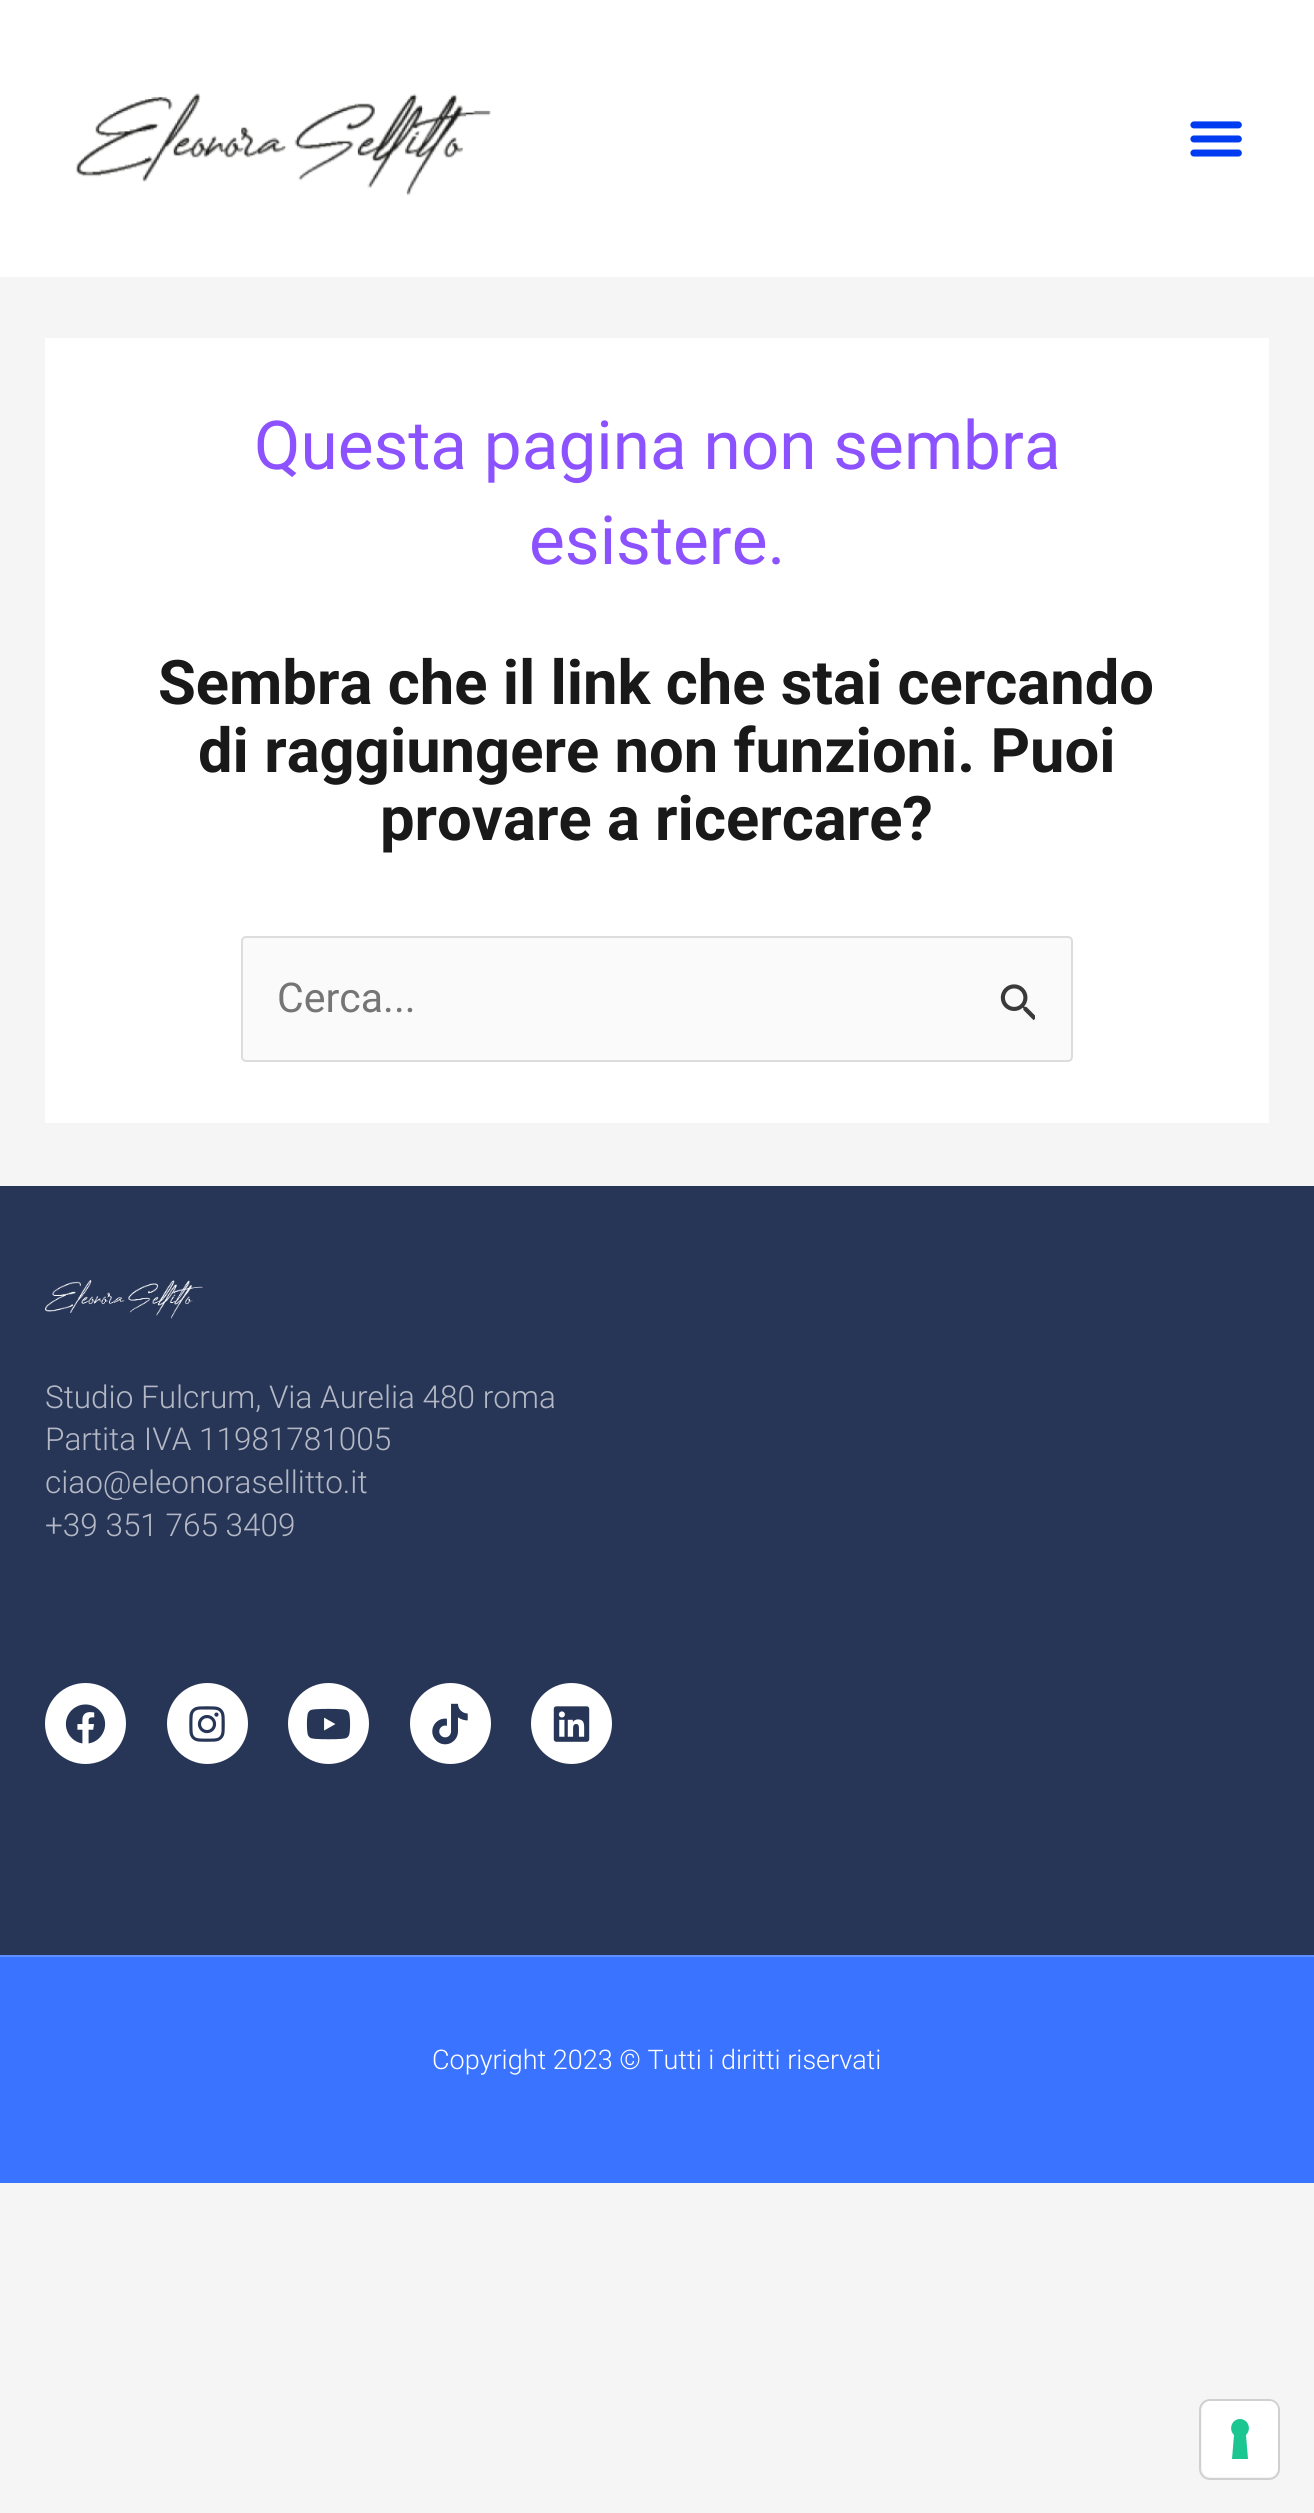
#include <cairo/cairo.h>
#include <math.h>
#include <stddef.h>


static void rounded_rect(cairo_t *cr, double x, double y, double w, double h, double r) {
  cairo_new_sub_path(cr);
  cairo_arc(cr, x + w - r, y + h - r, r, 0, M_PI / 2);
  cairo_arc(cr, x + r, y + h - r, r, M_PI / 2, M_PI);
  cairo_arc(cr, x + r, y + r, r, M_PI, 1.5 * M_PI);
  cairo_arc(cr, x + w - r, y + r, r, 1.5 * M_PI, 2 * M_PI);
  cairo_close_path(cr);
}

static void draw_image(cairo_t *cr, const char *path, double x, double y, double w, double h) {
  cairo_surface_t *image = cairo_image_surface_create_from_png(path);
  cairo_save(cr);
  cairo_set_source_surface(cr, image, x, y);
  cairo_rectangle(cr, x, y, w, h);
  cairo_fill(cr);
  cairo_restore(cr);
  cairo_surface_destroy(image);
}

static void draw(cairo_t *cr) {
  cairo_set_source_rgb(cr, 245 / 255.0, 245 / 255.0, 245 / 255.0);
  cairo_paint(cr);
  cairo_set_source_rgb(cr, 1, 1, 1);
  cairo_rectangle(cr, 0, 0, 1314, 277);
  cairo_fill(cr);
  draw_image(cr, "images/1.png", 76, 93, 415, 103);
  draw_image(cr, "images/2.png", 1190, 121, 52, 36);
  cairo_rectangle(cr, 45, 338, 1224, 785);
  cairo_fill(cr);
  cairo_set_source_rgb(cr, 250 / 255.0, 250 / 255.0, 250 / 255.0);
  rounded_rect(cr, 242, 937, 830, 124, 4);
  cairo_fill_preserve(cr);
  cairo_set_source_rgb(cr, 221 / 255.0, 221 / 255.0, 221 / 255.0);
  cairo_stroke(cr);
  draw_image(cr, "images/3.png", 1000, 984, 35, 37);
  cairo_set_source_rgb(cr, 39 / 255.0, 53 / 255.0, 87 / 255.0);
  cairo_rectangle(cr, 0, 1186, 1314, 769);
  cairo_fill(cr);
  draw_image(cr, "images/4.png", 45, 1280, 158, 39);
  cairo_set_source_rgb(cr, 1, 1, 1);
  cairo_arc(cr, 85.5, 1723.5, 40.5, 0, 2 * M_PI);
  cairo_fill(cr);
  draw_image(cr, "images/5.png", 65, 1704, 41, 40);
  cairo_arc(cr, 207.5, 1723.5, 40.5, 0, 2 * M_PI);
  cairo_fill(cr);
  draw_image(cr, "images/6.png", 189, 1706, 36, 36);
  cairo_arc(cr, 328.5, 1723.5, 40.5, 0, 2 * M_PI);
  cairo_fill(cr);
  draw_image(cr, "images/7.png", 306, 1708, 45, 32);
  cairo_arc(cr, 450.5, 1723.5, 40.5, 0, 2 * M_PI);
  cairo_fill(cr);
  draw_image(cr, "images/8.png", 432, 1703, 36, 42);
  cairo_arc(cr, 571.5, 1723.5, 40.5, 0, 2 * M_PI);
  cairo_fill(cr);
  draw_image(cr, "images/9.png", 553, 1706, 37, 36);
  cairo_set_source_rgb(cr, 57 / 255.0, 115 / 255.0, 1);
  cairo_rectangle(cr, 0, 1957, 1314, 226);
  cairo_fill(cr);
  cairo_set_source_rgb(cr, 95 / 255.0, 142 / 255.0, 1);
  cairo_rectangle(cr, 0, 1955, 1314, 2);
  cairo_fill(cr);
  rounded_rect(cr, 1200, 2400, 79, 79, 10);
  cairo_set_source_rgb(cr, 208 / 255.0, 208 / 255.0, 208 / 255.0);
  cairo_stroke(cr);
  cairo_set_source_rgb(cr, 1, 1, 1);
  rounded_rect(cr, 1202, 2401, 76, 76, 9);
  cairo_fill(cr);
  cairo_set_source_rgb(cr, 28 / 255.0, 198 / 255.0, 145 / 255.0);
  cairo_set_fill_rule(cr, CAIRO_FILL_RULE_EVEN_ODD);
  cairo_new_path(cr);
  cairo_move_to(cr, 1240, 2419);
  cairo_curve_to(cr, 1248, 2419, 1252, 2429, 1246, 2435);
  cairo_line_to(cr, 1248, 2459);
  cairo_line_to(cr, 1232, 2459);
  cairo_line_to(cr, 1234, 2435);
  cairo_curve_to(cr, 1228, 2429, 1232, 2419, 1240, 2419);
  cairo_close_path(cr);
  cairo_fill(cr);
  cairo_select_font_face(cr, "Roboto", CAIRO_FONT_SLANT_NORMAL, CAIRO_FONT_WEIGHT_NORMAL);
  cairo_set_font_size(cr, 67.5);
  cairo_set_source_rgb(cr, 140 / 255.0, 82 / 255.0, 1);
  cairo_move_to(cr, 254, 469);
  cairo_show_text(cr, "Questa pagina non sembra");
  cairo_move_to(cr, 529, 564);
  cairo_show_text(cr, "esistere.");
  cairo_select_font_face(cr, "Roboto", CAIRO_FONT_SLANT_NORMAL, CAIRO_FONT_WEIGHT_BOLD);
  cairo_set_font_size(cr, 61.5);
  cairo_set_source_rgb(cr, 25 / 255.0, 25 / 255.0, 25 / 255.0);
  cairo_move_to(cr, 158, 704);
  cairo_show_text(cr, "Sembra che il link che stai cercando");
  cairo_move_to(cr, 198, 772);
  cairo_show_text(cr, "di raggiungere non funzioni. Puoi");
  cairo_move_to(cr, 380, 840);
  cairo_show_text(cr, "provare a ricercare?");
  cairo_select_font_face(cr, "Roboto", CAIRO_FONT_SLANT_NORMAL, CAIRO_FONT_WEIGHT_NORMAL);
  cairo_set_font_size(cr, 41);
  cairo_set_source_rgb(cr, 117 / 255.0, 117 / 255.0, 117 / 255.0);
  cairo_move_to(cr, 277, 1012);
  cairo_show_text(cr, "Cerca...");
  cairo_select_font_face(cr, "Roboto Light", CAIRO_FONT_SLANT_NORMAL, CAIRO_FONT_WEIGHT_NORMAL);
  cairo_set_font_size(cr, 31.5);
  cairo_set_source_rgb(cr, 179 / 255.0, 184 / 255.0, 196 / 255.0);
  cairo_move_to(cr, 45, 1408);
  cairo_show_text(cr, "Studio Fulcrum, Via Aurelia 480 roma");
  cairo_move_to(cr, 45, 1450);
  cairo_show_text(cr, "Partita IVA 11981781005");
  cairo_move_to(cr, 45, 1493);
  cairo_show_text(cr, "ciao@eleonorasellitto.it");
  cairo_move_to(cr, 45, 1536);
  cairo_show_text(cr, "+39 351 765 3409");
  cairo_set_font_size(cr, 27);
  cairo_set_source_rgb(cr, 1, 1, 1);
  cairo_move_to(cr, 432, 2069);
  cairo_show_text(cr, "Copyright 2023 © Tutti i diritti riservati");
}

int main(void) {
  cairo_surface_t *surface = cairo_image_surface_create(CAIRO_FORMAT_RGB24, 1314, 2513);
  cairo_t *cr = cairo_create(surface);
  cairo_font_options_t *options = cairo_font_options_create();
  cairo_font_options_set_hint_metrics(options, CAIRO_HINT_METRICS_OFF);
  cairo_font_options_set_hint_style(options, CAIRO_HINT_STYLE_NONE);
  cairo_set_font_options(cr, options);
  cairo_set_miter_limit(cr, 4);
  draw(cr);
  cairo_surface_write_to_png(surface, "out.png");
  cairo_font_options_destroy(options);
  cairo_destroy(cr);
  cairo_surface_destroy(surface);
  return 0;
}
